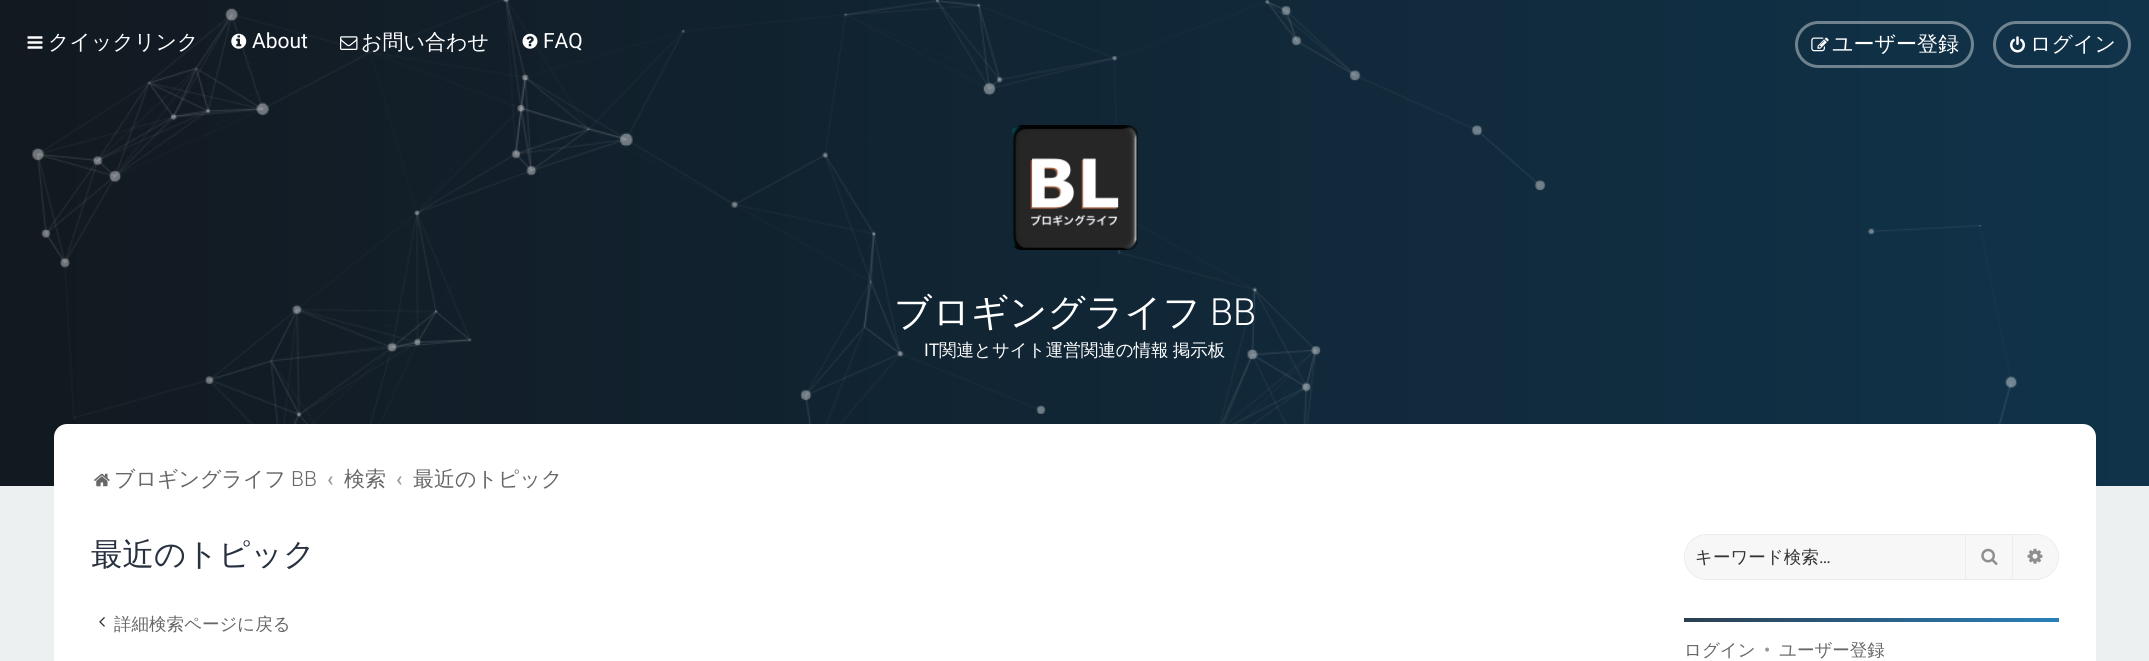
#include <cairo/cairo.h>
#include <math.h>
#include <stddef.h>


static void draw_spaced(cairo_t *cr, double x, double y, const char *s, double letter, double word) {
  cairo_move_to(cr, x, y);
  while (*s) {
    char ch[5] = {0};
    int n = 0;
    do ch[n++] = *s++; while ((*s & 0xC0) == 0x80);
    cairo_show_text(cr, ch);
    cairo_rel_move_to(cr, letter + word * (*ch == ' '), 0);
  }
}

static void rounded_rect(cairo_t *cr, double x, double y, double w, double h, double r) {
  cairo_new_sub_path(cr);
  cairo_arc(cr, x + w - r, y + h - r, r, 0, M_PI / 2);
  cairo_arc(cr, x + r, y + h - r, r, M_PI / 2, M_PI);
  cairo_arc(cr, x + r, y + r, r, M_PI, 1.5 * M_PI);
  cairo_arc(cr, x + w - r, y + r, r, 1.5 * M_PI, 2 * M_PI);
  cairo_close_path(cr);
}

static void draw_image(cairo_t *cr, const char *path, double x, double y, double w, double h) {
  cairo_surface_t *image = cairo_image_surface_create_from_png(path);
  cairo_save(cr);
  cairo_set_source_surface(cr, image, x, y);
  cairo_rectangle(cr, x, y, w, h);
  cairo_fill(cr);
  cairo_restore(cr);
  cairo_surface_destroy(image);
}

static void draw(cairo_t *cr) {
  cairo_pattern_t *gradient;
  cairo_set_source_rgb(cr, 236 / 255.0, 240 / 255.0, 241 / 255.0);
  cairo_paint(cr);
  gradient = cairo_pattern_create_linear(0, 243, 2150, 243);
  cairo_pattern_add_color_stop_rgba(gradient, 0, 18 / 255.0, 25 / 255.0, 32 / 255.0, 1);
  cairo_pattern_add_color_stop_rgba(gradient, 1, 16 / 255.0, 51 / 255.0, 74 / 255.0, 1);
  cairo_set_source(cr, gradient);
  cairo_pattern_destroy(gradient);
  cairo_rectangle(cr, 0, 0, 2149, 486);
  cairo_fill(cr);
  draw_image(cr, "images/7.png", 32, 0, 1985, 424);
  draw_image(cr, "images/1.png", 27, 36, 16, 13);
  draw_image(cr, "images/2.png", 231, 33, 16, 16);
  draw_image(cr, "images/3.png", 340, 36, 18, 14);
  draw_image(cr, "images/4.png", 522, 33, 16, 16);
  rounded_rect(cr, 1796.5, 22.5, 176, 44, 22);
  cairo_set_source_rgba(cr, 1, 1, 1, 0.4);
  cairo_set_line_width(cr, 3);
  cairo_stroke(cr);
  draw_image(cr, "images/5.png", 1811, 37, 18, 15);
  rounded_rect(cr, 1994.5, 22.5, 135, 44, 22);
  cairo_stroke(cr);
  draw_image(cr, "images/6.png", 2010, 36, 15, 17);
  draw_image(cr, "images/8.png", 1012, 125, 126, 125);
  cairo_set_source_rgb(cr, 1, 1, 1);
  rounded_rect(cr, 54, 424, 2042, 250, 13);
  cairo_fill(cr);
  draw_image(cr, "images/9.png", 94, 473, 16, 14);
  draw_image(cr, "images/10.png", 99, 617, 6, 10);
  cairo_set_source_rgb(cr, 247 / 255.0, 247 / 255.0, 247 / 255.0);
  cairo_new_path(cr);
  cairo_move_to(cr, 1707, 535);
  cairo_line_to(cr, 1965, 535);
  cairo_line_to(cr, 1965, 579);
  cairo_line_to(cr, 1707, 579);
  cairo_curve_to(cr, 1695, 579, 1685, 569, 1685, 557);
  cairo_curve_to(cr, 1685, 545, 1695, 535, 1707, 535);
  cairo_close_path(cr);
  cairo_fill(cr);
  cairo_set_source_rgb(cr, 237 / 255.0, 236 / 255.0, 236 / 255.0);
  cairo_set_fill_rule(cr, CAIRO_FILL_RULE_EVEN_ODD);
  cairo_new_path(cr);
  cairo_move_to(cr, 1707, 534);
  cairo_line_to(cr, 1965, 534);
  cairo_line_to(cr, 1965, 580);
  cairo_line_to(cr, 1707, 580);
  cairo_curve_to(cr, 1694, 580, 1684, 570, 1684, 557);
  cairo_curve_to(cr, 1684, 544, 1694, 534, 1707, 534);
  cairo_close_path(cr);
  cairo_move_to(cr, 1707, 535);
  cairo_line_to(cr, 1965, 535);
  cairo_line_to(cr, 1965, 579);
  cairo_line_to(cr, 1707, 579);
  cairo_curve_to(cr, 1695, 579, 1685, 569, 1685, 557);
  cairo_curve_to(cr, 1685, 545, 1695, 535, 1707, 535);
  cairo_close_path(cr);
  cairo_fill(cr);
  cairo_set_source_rgb(cr, 247 / 255.0, 247 / 255.0, 247 / 255.0);
  cairo_rectangle(cr, 1965.5, 534.5, 47, 45);
  cairo_fill_preserve(cr);
  cairo_set_source_rgb(cr, 237 / 255.0, 236 / 255.0, 236 / 255.0);
  cairo_set_line_width(cr, 1);
  cairo_stroke(cr);
  draw_image(cr, "images/11.png", 1981, 548, 17, 17);
  cairo_set_source_rgb(cr, 247 / 255.0, 247 / 255.0, 247 / 255.0);
  cairo_new_path(cr);
  cairo_move_to(cr, 2013, 535);
  cairo_line_to(cr, 2036, 535);
  cairo_curve_to(cr, 2048, 535, 2058, 545, 2058, 557);
  cairo_curve_to(cr, 2058, 569, 2048, 579, 2036, 579);
  cairo_line_to(cr, 2013, 579);
  cairo_close_path(cr);
  cairo_fill(cr);
  cairo_set_source_rgb(cr, 237 / 255.0, 236 / 255.0, 236 / 255.0);
  cairo_new_path(cr);
  cairo_move_to(cr, 2012, 534);
  cairo_line_to(cr, 2036, 534);
  cairo_curve_to(cr, 2048, 534, 2059, 544, 2059, 557);
  cairo_curve_to(cr, 2059, 570, 2048, 580, 2036, 580);
  cairo_line_to(cr, 2012, 580);
  cairo_close_path(cr);
  cairo_move_to(cr, 2012, 535);
  cairo_line_to(cr, 2036, 535);
  cairo_curve_to(cr, 2048, 535, 2058, 545, 2058, 557);
  cairo_curve_to(cr, 2058, 569, 2048, 579, 2036, 579);
  cairo_line_to(cr, 2012, 579);
  cairo_close_path(cr);
  cairo_fill(cr);
  draw_image(cr, "images/12.png", 2027, 548, 16, 16);
  gradient = cairo_pattern_create_linear(1684, 619, 2059, 619);
  cairo_pattern_add_color_stop_rgba(gradient, 0, 44 / 255.0, 62 / 255.0, 80 / 255.0, 1);
  cairo_pattern_add_color_stop_rgba(gradient, 1, 41 / 255.0, 128 / 255.0, 185 / 255.0, 1);
  cairo_set_source(cr, gradient);
  cairo_pattern_destroy(gradient);
  cairo_rectangle(cr, 1684, 618, 375, 4);
  cairo_fill(cr);
  cairo_select_font_face(cr, "WenQuanYi Zen Hei Medium", CAIRO_FONT_SLANT_NORMAL, CAIRO_FONT_WEIGHT_NORMAL);
  cairo_set_font_size(cr, 21);
  cairo_set_source_rgb(cr, 1, 1, 1);
  cairo_move_to(cr, 48, 49);
  cairo_show_text(cr, "クイックリンク");
  cairo_select_font_face(cr, "Roboto", CAIRO_FONT_SLANT_NORMAL, CAIRO_FONT_WEIGHT_NORMAL);
  cairo_move_to(cr, 252, 48);
  cairo_show_text(cr, "About");
  cairo_select_font_face(cr, "WenQuanYi Zen Hei Medium", CAIRO_FONT_SLANT_NORMAL, CAIRO_FONT_WEIGHT_NORMAL);
  cairo_move_to(cr, 361, 49);
  cairo_show_text(cr, "お問い合わせ");
  cairo_select_font_face(cr, "Roboto", CAIRO_FONT_SLANT_NORMAL, CAIRO_FONT_WEIGHT_NORMAL);
  cairo_move_to(cr, 543, 48);
  cairo_show_text(cr, "FAQ");
  cairo_select_font_face(cr, "WenQuanYi Zen Hei Medium", CAIRO_FONT_SLANT_NORMAL, CAIRO_FONT_WEIGHT_NORMAL);
  cairo_move_to(cr, 1832, 51);
  cairo_show_text(cr, "ユーザー登録");
  cairo_move_to(cr, 2030, 51);
  cairo_show_text(cr, "ログイン");
  cairo_set_font_size(cr, 37.5);
  cairo_move_to(cr, 894, 325);
  cairo_show_text(cr, "ブロギングライフ");
  cairo_select_font_face(cr, "Roboto Light", CAIRO_FONT_SLANT_NORMAL, CAIRO_FONT_WEIGHT_NORMAL);
  cairo_move_to(cr, 1210, 325);
  cairo_show_text(cr, "BB");
  cairo_select_font_face(cr, "Roboto", CAIRO_FONT_SLANT_NORMAL, CAIRO_FONT_WEIGHT_NORMAL);
  cairo_set_font_size(cr, 17.5);
  cairo_move_to(cr, 924, 356);
  cairo_show_text(cr, "IT");
  cairo_select_font_face(cr, "WenQuanYi Zen Hei Medium", CAIRO_FONT_SLANT_NORMAL, CAIRO_FONT_WEIGHT_NORMAL);
  draw_spaced(cr, 939, 356, "関連とサイト運営関連の情報 掲示板", 0, -1);
  cairo_set_font_size(cr, 21);
  cairo_set_source_rgb(cr, 103 / 255.0, 103 / 255.0, 103 / 255.0);
  cairo_move_to(cr, 114, 486);
  cairo_show_text(cr, "ブロギングライフ");
  cairo_select_font_face(cr, "Roboto Light", CAIRO_FONT_SLANT_NORMAL, CAIRO_FONT_WEIGHT_NORMAL);
  cairo_move_to(cr, 291, 486);
  cairo_show_text(cr, "BB");
  cairo_select_font_face(cr, "Roboto Medium", CAIRO_FONT_SLANT_NORMAL, CAIRO_FONT_WEIGHT_NORMAL);
  cairo_set_source_rgb(cr, 153 / 255.0, 153 / 255.0, 153 / 255.0);
  cairo_move_to(cr, 327, 486);
  cairo_show_text(cr, "‹");
  cairo_select_font_face(cr, "WenQuanYi Zen Hei Medium", CAIRO_FONT_SLANT_NORMAL, CAIRO_FONT_WEIGHT_NORMAL);
  cairo_set_source_rgb(cr, 103 / 255.0, 103 / 255.0, 103 / 255.0);
  cairo_move_to(cr, 344, 486);
  cairo_show_text(cr, "検索");
  cairo_select_font_face(cr, "Roboto Medium", CAIRO_FONT_SLANT_NORMAL, CAIRO_FONT_WEIGHT_NORMAL);
  cairo_set_source_rgb(cr, 153 / 255.0, 153 / 255.0, 153 / 255.0);
  cairo_move_to(cr, 396, 486);
  cairo_show_text(cr, "‹");
  cairo_select_font_face(cr, "WenQuanYi Zen Hei Medium", CAIRO_FONT_SLANT_NORMAL, CAIRO_FONT_WEIGHT_NORMAL);
  cairo_set_source_rgb(cr, 103 / 255.0, 103 / 255.0, 103 / 255.0);
  cairo_move_to(cr, 413, 486);
  cairo_show_text(cr, "最近のトピック");
  cairo_set_font_size(cr, 31.5);
  cairo_set_source_rgb(cr, 40 / 255.0, 49 / 255.0, 63 / 255.0);
  cairo_move_to(cr, 91, 565);
  cairo_show_text(cr, "最近のトピック");
  cairo_set_font_size(cr, 17.5);
  cairo_set_source_rgb(cr, 103 / 255.0, 103 / 255.0, 103 / 255.0);
  cairo_move_to(cr, 114, 630);
  cairo_show_text(cr, "詳細検索ページに戻る");
  cairo_set_source_rgb(cr, 51 / 255.0, 51 / 255.0, 51 / 255.0);
  cairo_move_to(cr, 1695, 563);
  cairo_show_text(cr, "キーワード検索");
  cairo_select_font_face(cr, "Roboto", CAIRO_FONT_SLANT_NORMAL, CAIRO_FONT_WEIGHT_NORMAL);
  cairo_move_to(cr, 1819, 563);
  cairo_show_text(cr, "…");
  cairo_select_font_face(cr, "WenQuanYi Zen Hei Medium", CAIRO_FONT_SLANT_NORMAL, CAIRO_FONT_WEIGHT_NORMAL);
  cairo_set_source_rgb(cr, 103 / 255.0, 103 / 255.0, 103 / 255.0);
  cairo_move_to(cr, 1684, 656);
  cairo_show_text(cr, "ログイン");
  cairo_select_font_face(cr, "Roboto Medium", CAIRO_FONT_SLANT_NORMAL, CAIRO_FONT_WEIGHT_NORMAL);
  cairo_set_source_rgb(cr, 153 / 255.0, 153 / 255.0, 153 / 255.0);
  cairo_move_to(cr, 1764, 656);
  cairo_show_text(cr, "•");
  cairo_select_font_face(cr, "WenQuanYi Zen Hei Medium", CAIRO_FONT_SLANT_NORMAL, CAIRO_FONT_WEIGHT_NORMAL);
  cairo_set_source_rgb(cr, 103 / 255.0, 103 / 255.0, 103 / 255.0);
  cairo_move_to(cr, 1779, 656);
  cairo_show_text(cr, "ユーザー登録");
}

int main(void) {
  cairo_surface_t *surface = cairo_image_surface_create(CAIRO_FORMAT_RGB24, 2149, 661);
  cairo_t *cr = cairo_create(surface);
  cairo_font_options_t *options = cairo_font_options_create();
  cairo_font_options_set_hint_metrics(options, CAIRO_HINT_METRICS_OFF);
  cairo_font_options_set_hint_style(options, CAIRO_HINT_STYLE_NONE);
  cairo_set_font_options(cr, options);
  cairo_set_miter_limit(cr, 4);
  draw(cr);
  cairo_surface_write_to_png(surface, "out.png");
  cairo_font_options_destroy(options);
  cairo_destroy(cr);
  cairo_surface_destroy(surface);
  return 0;
}
